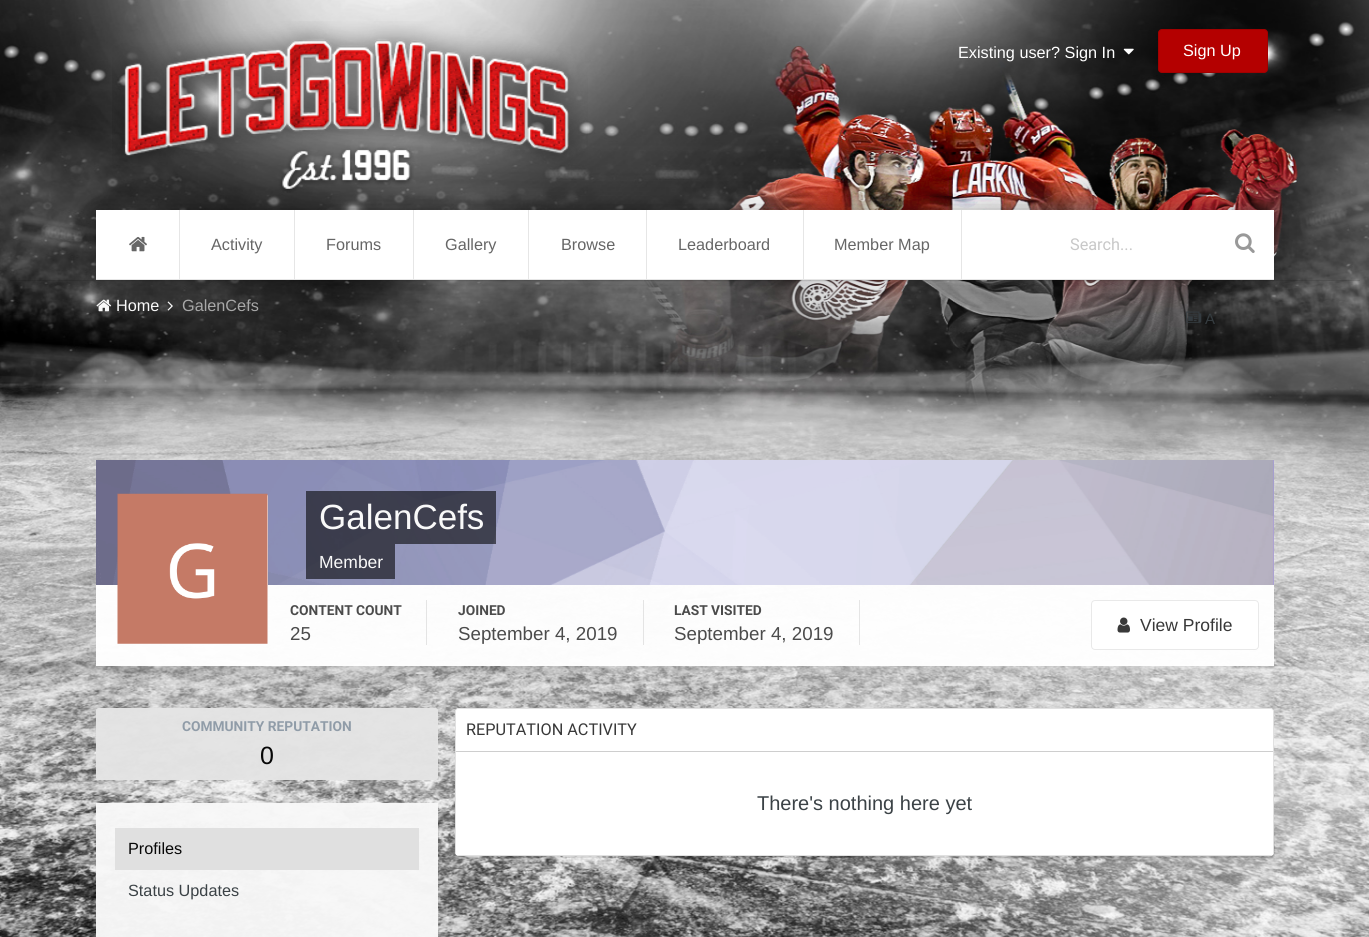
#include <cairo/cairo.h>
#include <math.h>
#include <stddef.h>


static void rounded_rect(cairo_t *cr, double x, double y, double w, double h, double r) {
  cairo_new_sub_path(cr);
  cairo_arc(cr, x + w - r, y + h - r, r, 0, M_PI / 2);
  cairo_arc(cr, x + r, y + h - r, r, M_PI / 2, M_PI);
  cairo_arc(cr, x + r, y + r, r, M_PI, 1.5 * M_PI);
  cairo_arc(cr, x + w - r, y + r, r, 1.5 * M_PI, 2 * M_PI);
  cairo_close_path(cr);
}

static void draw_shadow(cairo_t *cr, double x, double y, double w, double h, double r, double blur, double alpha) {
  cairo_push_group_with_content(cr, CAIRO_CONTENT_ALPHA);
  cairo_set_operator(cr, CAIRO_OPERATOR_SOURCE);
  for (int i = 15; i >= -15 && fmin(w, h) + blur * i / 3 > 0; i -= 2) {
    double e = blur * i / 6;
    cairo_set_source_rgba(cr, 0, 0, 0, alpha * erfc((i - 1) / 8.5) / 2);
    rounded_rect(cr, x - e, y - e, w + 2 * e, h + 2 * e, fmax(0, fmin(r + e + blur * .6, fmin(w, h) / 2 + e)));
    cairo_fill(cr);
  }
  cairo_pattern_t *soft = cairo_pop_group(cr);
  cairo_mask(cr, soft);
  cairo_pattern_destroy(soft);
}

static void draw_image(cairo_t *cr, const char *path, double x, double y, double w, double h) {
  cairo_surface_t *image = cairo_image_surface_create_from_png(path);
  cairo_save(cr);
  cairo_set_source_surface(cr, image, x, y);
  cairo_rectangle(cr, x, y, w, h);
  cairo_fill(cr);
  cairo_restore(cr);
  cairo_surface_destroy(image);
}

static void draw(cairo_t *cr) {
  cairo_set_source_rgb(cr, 1, 1, 1);
  cairo_paint(cr);
  draw_image(cr, "images/1.png", 0, 0, 1369, 937);
  cairo_set_source_rgba(cr, 0, 0, 0, 0.1);
  cairo_rectangle(cr, 10, 280, 1350, 1);
  cairo_fill(cr);
  draw_image(cr, "images/2.png", 112, 21, 476, 172);
  draw_image(cr, "images/3.png", 1123, 48, 11, 7);
  cairo_set_source_rgb(cr, 180 / 255.0, 0, 0);
  rounded_rect(cr, 1158, 29, 110, 44, 4);
  cairo_fill(cr);
  rounded_rect(cr, 1158.5, 29.5, 109, 43, 3.5);
  cairo_set_source_rgba(cr, 0, 0, 0, 0.1);
  cairo_set_line_width(cr, 1);
  cairo_stroke(cr);
  draw_image(cr, "images/6.png", 96, 299, 16, 13);
  draw_image(cr, "images/7.png", 167, 301, 6, 10);
  draw_image(cr, "images/8.png", 1186, 311, 16, 12);
  cairo_set_source_rgb(cr, 0, 0, 0);
  draw_shadow(cr, 96, 210, 1178, 70, 0, 12.5, 0.3);
  cairo_set_source_rgb(cr, 1, 1, 1);
  cairo_rectangle(cr, 96, 210, 1178, 69);
  cairo_fill(cr);
  cairo_set_source_rgb(cr, 230 / 255.0, 230 / 255.0, 230 / 255.0);
  cairo_rectangle(cr, 96, 279, 1178, 1);
  cairo_fill(cr);
  cairo_rectangle(cr, 179, 210, 1, 69);
  cairo_fill(cr);
  draw_image(cr, "images/4.png", 129, 236, 18, 16);
  cairo_rectangle(cr, 294, 210, 1, 69);
  cairo_fill(cr);
  cairo_rectangle(cr, 413, 210, 1, 69);
  cairo_fill(cr);
  cairo_rectangle(cr, 528, 210, 1, 69);
  cairo_fill(cr);
  cairo_rectangle(cr, 646, 210, 1, 69);
  cairo_fill(cr);
  cairo_rectangle(cr, 803, 210, 1, 69);
  cairo_fill(cr);
  cairo_rectangle(cr, 961, 210, 1, 69);
  cairo_fill(cr);
  draw_image(cr, "images/5.png", 1235, 233, 20, 20);
  cairo_set_source_rgba(cr, 41 / 255.0, 41 / 255.0, 41 / 255.0, 0.97);
  cairo_new_path(cr);
  cairo_move_to(cr, 101, 460);
  cairo_line_to(cr, 1269, 460);
  cairo_curve_to(cr, 1272, 460, 1274, 462, 1274, 465);
  cairo_line_to(cr, 1274, 585);
  cairo_line_to(cr, 96, 585);
  cairo_line_to(cr, 96, 465);
  cairo_curve_to(cr, 96, 462, 98, 460, 101, 460);
  cairo_close_path(cr);
  cairo_fill(cr);
  cairo_set_source_rgba(cr, 156 / 255.0, 153 / 255.0, 1, 0.97);
  cairo_rectangle(cr, 96, 460, 1178, 125);
  cairo_fill(cr);
  draw_image(cr, "images/9.png", 96, 460, 1178, 125);
  cairo_set_source_rgba(cr, 1, 1, 1, 0.97);
  cairo_rectangle(cr, 96, 585, 1178, 81);
  cairo_fill(cr);
  rounded_rect(cr, 118, 494, 150, 150, 2.5);
  cairo_fill(cr);
  draw_image(cr, "images/10.png", 117, 493, 151, 151);
  cairo_set_source_rgba(cr, 0, 0, 0, 0.58);
  cairo_rectangle(cr, 306, 491, 190, 53);
  cairo_fill(cr);
  cairo_rectangle(cr, 306, 544, 89, 35);
  cairo_fill(cr);
  cairo_set_source_rgb(cr, 228 / 255.0, 228 / 255.0, 228 / 255.0);
  cairo_rectangle(cr, 426, 600, 1, 45);
  cairo_fill(cr);
  cairo_rectangle(cr, 643, 600, 1, 45);
  cairo_fill(cr);
  cairo_set_source_rgb(cr, 229 / 255.0, 229 / 255.0, 229 / 255.0);
  cairo_rectangle(cr, 859, 600, 1, 45);
  cairo_fill(cr);
  cairo_set_source_rgba(cr, 1, 1, 1, 0.97);
  rounded_rect(cr, 1091.5, 600.5, 167, 49, 3.5);
  cairo_fill_preserve(cr);
  cairo_set_source_rgb(cr, 233 / 255.0, 233 / 255.0, 233 / 255.0);
  cairo_stroke(cr);
  draw_image(cr, "images/11.png", 1117, 617, 13, 16);
  cairo_set_source_rgba(cr, 229 / 255.0, 229 / 255.0, 229 / 255.0, 0.97);
  rounded_rect(cr, 96, 708, 342, 72, 2.5);
  cairo_fill(cr);
  cairo_set_source_rgba(cr, 248 / 255.0, 248 / 255.0, 248 / 255.0, 0.97);
  cairo_rectangle(cr, 96, 803, 342, 134);
  cairo_fill(cr);
  cairo_set_source_rgba(cr, 223 / 255.0, 223 / 255.0, 223 / 255.0, 0.97);
  cairo_rectangle(cr, 115, 828, 304, 42);
  cairo_fill(cr);
  cairo_set_source_rgba(cr, 0, 0, 0, 0.1);
  cairo_new_path(cr);
  cairo_move_to(cr, 455, 852);
  cairo_curve_to(cr, 455, 855, 455, 857, 457, 858);
  cairo_line_to(cr, 1270, 858);
  cairo_curve_to(cr, 1278, 858, 1274, 838, 1274, 830);
  cairo_line_to(cr, 1274, 712);
  cairo_line_to(cr, 1274, 852);
  cairo_curve_to(cr, 1274, 855, 1272, 856, 1270, 856);
  cairo_line_to(cr, 459, 856);
  cairo_curve_to(cr, 457, 856, 455, 855, 455, 852);
  cairo_close_path(cr);
  cairo_fill(cr);
  cairo_set_source_rgba(cr, 1, 1, 1, 0.97);
  rounded_rect(cr, 455, 708, 819, 148, 4);
  cairo_fill(cr);
  rounded_rect(cr, 455.5, 708.5, 818, 147, 3.5);
  cairo_set_source_rgba(cr, 224 / 255.0, 224 / 255.0, 224 / 255.0, 0.97);
  cairo_stroke(cr);
  cairo_set_source_rgba(cr, 1, 1, 1, 0.97);
  cairo_new_path(cr);
  cairo_move_to(cr, 458.5, 709);
  cairo_line_to(cr, 1270.5, 709);
  cairo_curve_to(cr, 1272, 709, 1273, 710, 1273, 711.5);
  cairo_line_to(cr, 1273, 753);
  cairo_line_to(cr, 456, 753);
  cairo_line_to(cr, 456, 711.5);
  cairo_curve_to(cr, 456, 710, 457, 709, 458.5, 709);
  cairo_close_path(cr);
  cairo_fill(cr);
  cairo_set_source_rgb(cr, 206 / 255.0, 206 / 255.0, 206 / 255.0);
  cairo_rectangle(cr, 456, 751, 817, 1);
  cairo_fill(cr);
  cairo_set_source_rgba(cr, 1, 1, 1, 0.97);
  cairo_rectangle(cr, 456, 753, 817, 102);
  cairo_fill(cr);
  cairo_select_font_face(cr, "Liberation Sans", CAIRO_FONT_SLANT_NORMAL, CAIRO_FONT_WEIGHT_NORMAL);
  cairo_set_font_size(cr, 16.25);
  cairo_set_source_rgb(cr, 1, 1, 1);
  cairo_move_to(cr, 958, 58);
  cairo_show_text(cr, "Existing user? Sign In");
  cairo_move_to(cr, 1183, 56);
  cairo_show_text(cr, "Sign Up");
  cairo_set_source_rgb(cr, 102 / 255.0, 102 / 255.0, 102 / 255.0);
  cairo_move_to(cr, 211, 250);
  cairo_show_text(cr, "Activity");
  cairo_move_to(cr, 326, 250);
  cairo_show_text(cr, "Forums");
  cairo_move_to(cr, 445, 250);
  cairo_show_text(cr, "Gallery");
  cairo_move_to(cr, 561, 250);
  cairo_show_text(cr, "Browse");
  cairo_move_to(cr, 678, 250);
  cairo_show_text(cr, "Leaderboard");
  cairo_move_to(cr, 834, 250);
  cairo_show_text(cr, "Member Map");
  cairo_select_font_face(cr, "Roboto", CAIRO_FONT_SLANT_NORMAL, CAIRO_FONT_WEIGHT_NORMAL);
  cairo_set_source_rgb(cr, 200 / 255.0, 200 / 255.0, 200 / 255.0);
  cairo_move_to(cr, 1070, 250);
  cairo_show_text(cr, "Search...");
  cairo_select_font_face(cr, "Liberation Sans", CAIRO_FONT_SLANT_NORMAL, CAIRO_FONT_WEIGHT_NORMAL);
  cairo_set_source_rgb(cr, 249 / 255.0, 249 / 255.0, 249 / 255.0);
  cairo_move_to(cr, 116, 311);
  cairo_show_text(cr, "Home");
  cairo_set_source_rgb(cr, 168 / 255.0, 168 / 255.0, 168 / 255.0);
  cairo_move_to(cr, 182, 311);
  cairo_show_text(cr, "GalenCefs");
  cairo_set_font_size(cr, 15);
  cairo_set_source_rgb(cr, 53 / 255.0, 60 / 255.0, 64 / 255.0);
  cairo_move_to(cr, 1205, 324);
  cairo_show_text(cr, "A");
  cairo_set_font_size(cr, 35);
  cairo_set_source_rgb(cr, 249 / 255.0, 249 / 255.0, 249 / 255.0);
  cairo_move_to(cr, 319, 529);
  cairo_show_text(cr, "GalenCefs");
  cairo_set_font_size(cr, 17.5);
  cairo_move_to(cr, 319, 568);
  cairo_show_text(cr, "Member");
  cairo_select_font_face(cr, "Roboto", CAIRO_FONT_SLANT_NORMAL, CAIRO_FONT_WEIGHT_BOLD);
  cairo_set_font_size(cr, 13.75);
  cairo_set_source_rgb(cr, 75 / 255.0, 75 / 255.0, 75 / 255.0);
  cairo_move_to(cr, 290, 615);
  cairo_show_text(cr, "CONTENT COUNT");
  cairo_select_font_face(cr, "Liberation Sans", CAIRO_FONT_SLANT_NORMAL, CAIRO_FONT_WEIGHT_NORMAL);
  cairo_set_font_size(cr, 18.75);
  cairo_move_to(cr, 290, 640);
  cairo_show_text(cr, "25");
  cairo_select_font_face(cr, "Roboto", CAIRO_FONT_SLANT_NORMAL, CAIRO_FONT_WEIGHT_BOLD);
  cairo_set_font_size(cr, 13.75);
  cairo_move_to(cr, 458, 615);
  cairo_show_text(cr, "JOINED");
  cairo_select_font_face(cr, "Liberation Sans", CAIRO_FONT_SLANT_NORMAL, CAIRO_FONT_WEIGHT_NORMAL);
  cairo_set_font_size(cr, 18.75);
  cairo_move_to(cr, 458, 640);
  cairo_show_text(cr, "September 4, 2019");
  cairo_select_font_face(cr, "Roboto", CAIRO_FONT_SLANT_NORMAL, CAIRO_FONT_WEIGHT_BOLD);
  cairo_set_font_size(cr, 13.75);
  cairo_move_to(cr, 674, 615);
  cairo_show_text(cr, "LAST VISITED");
  cairo_select_font_face(cr, "Liberation Sans", CAIRO_FONT_SLANT_NORMAL, CAIRO_FONT_WEIGHT_NORMAL);
  cairo_set_font_size(cr, 18.75);
  cairo_move_to(cr, 674, 640);
  cairo_show_text(cr, "September 4, 2019");
  cairo_set_font_size(cr, 17.5);
  cairo_set_source_rgb(cr, 56 / 255.0, 56 / 255.0, 56 / 255.0);
  cairo_move_to(cr, 1140, 631);
  cairo_show_text(cr, "View Profile");
  cairo_select_font_face(cr, "Roboto", CAIRO_FONT_SLANT_NORMAL, CAIRO_FONT_WEIGHT_BOLD);
  cairo_set_font_size(cr, 13.75);
  cairo_set_source_rgb(cr, 144 / 255.0, 156 / 255.0, 168 / 255.0);
  cairo_move_to(cr, 182, 731);
  cairo_show_text(cr, "COMMUNITY REPUTATION");
  cairo_select_font_face(cr, "Liberation Sans", CAIRO_FONT_SLANT_NORMAL, CAIRO_FONT_WEIGHT_NORMAL);
  cairo_set_font_size(cr, 25);
  cairo_set_source_rgb(cr, 7 / 255.0, 7 / 255.0, 7 / 255.0);
  cairo_move_to(cr, 260, 764);
  cairo_show_text(cr, "0");
  cairo_set_font_size(cr, 16.25);
  cairo_move_to(cr, 128, 854);
  cairo_show_text(cr, "Profiles");
  cairo_set_source_rgb(cr, 59 / 255.0, 66 / 255.0, 70 / 255.0);
  cairo_move_to(cr, 128, 896);
  cairo_show_text(cr, "Status Updates");
  cairo_select_font_face(cr, "Roboto", CAIRO_FONT_SLANT_NORMAL, CAIRO_FONT_WEIGHT_NORMAL);
  cairo_set_source_rgb(cr, 56 / 255.0, 56 / 255.0, 56 / 255.0);
  cairo_move_to(cr, 466, 735);
  cairo_show_text(cr, "REPUTATION ACTIVITY");
  cairo_select_font_face(cr, "Liberation Sans", CAIRO_FONT_SLANT_NORMAL, CAIRO_FONT_WEIGHT_NORMAL);
  cairo_set_font_size(cr, 20);
  cairo_set_source_rgb(cr, 59 / 255.0, 66 / 255.0, 70 / 255.0);
  cairo_move_to(cr, 757, 810);
  cairo_show_text(cr, "There's nothing here yet");
}

int main(void) {
  cairo_surface_t *surface = cairo_image_surface_create(CAIRO_FORMAT_RGB24, 1369, 937);
  cairo_t *cr = cairo_create(surface);
  cairo_font_options_t *options = cairo_font_options_create();
  cairo_font_options_set_hint_metrics(options, CAIRO_HINT_METRICS_OFF);
  cairo_font_options_set_hint_style(options, CAIRO_HINT_STYLE_NONE);
  cairo_set_font_options(cr, options);
  cairo_set_miter_limit(cr, 4);
  draw(cr);
  cairo_surface_write_to_png(surface, "out.png");
  cairo_font_options_destroy(options);
  cairo_destroy(cr);
  cairo_surface_destroy(surface);
  return 0;
}
